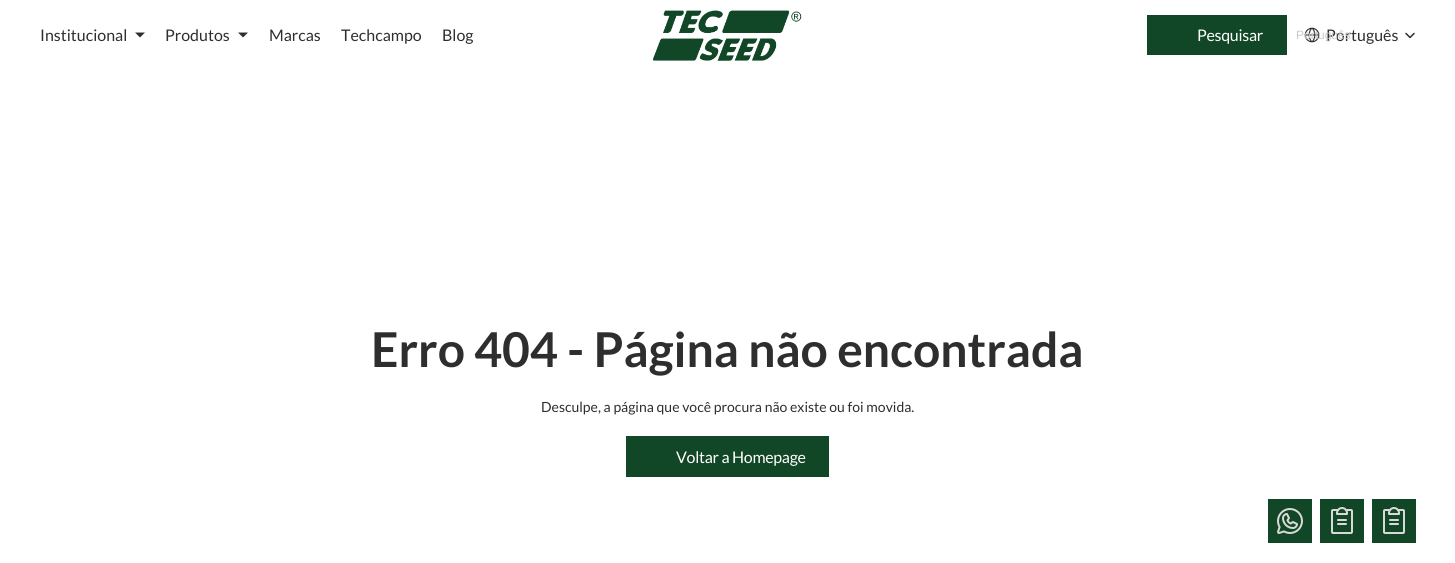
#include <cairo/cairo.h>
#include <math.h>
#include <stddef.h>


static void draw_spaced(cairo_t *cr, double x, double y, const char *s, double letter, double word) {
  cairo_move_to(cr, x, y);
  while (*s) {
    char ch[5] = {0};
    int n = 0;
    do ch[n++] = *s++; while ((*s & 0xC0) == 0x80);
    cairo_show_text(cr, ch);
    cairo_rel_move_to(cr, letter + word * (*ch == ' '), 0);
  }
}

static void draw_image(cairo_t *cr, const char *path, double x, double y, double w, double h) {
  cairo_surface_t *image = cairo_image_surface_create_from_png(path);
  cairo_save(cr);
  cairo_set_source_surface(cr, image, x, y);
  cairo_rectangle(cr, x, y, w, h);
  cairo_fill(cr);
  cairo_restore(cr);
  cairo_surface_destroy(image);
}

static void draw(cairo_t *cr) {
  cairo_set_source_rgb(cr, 1, 1, 1);
  cairo_paint(cr);
  cairo_set_source_rgb(cr, 46 / 255.0, 46 / 255.0, 46 / 255.0);
  cairo_new_path(cr);
  cairo_move_to(cr, 135, 32.5);
  cairo_line_to(cr, 140, 37.5);
  cairo_line_to(cr, 145, 32.5);
  cairo_close_path(cr);
  cairo_fill(cr);
  cairo_new_path(cr);
  cairo_move_to(cr, 238, 32.5);
  cairo_line_to(cr, 243, 37.5);
  cairo_line_to(cr, 248, 32.5);
  cairo_close_path(cr);
  cairo_fill(cr);
  draw_image(cr, "images/1.png", 653, 10, 149, 51);
  cairo_set_source_rgb(cr, 17 / 255.0, 71 / 255.0, 39 / 255.0);
  cairo_rectangle(cr, 1147, 15, 140, 40);
  cairo_fill(cr);
  draw_image(cr, "images/2.png", 1304, 27, 16, 16);
  cairo_new_path(cr);
  cairo_move_to(cr, 1406, 33.5);
  cairo_line_to(cr, 1410, 37.5);
  cairo_line_to(cr, 1414, 33.5);
  cairo_set_source_rgb(cr, 46 / 255.0, 46 / 255.0, 46 / 255.0);
  cairo_set_line_width(cr, 1.5);
  cairo_set_line_cap(cr, CAIRO_LINE_CAP_ROUND);
  cairo_set_line_join(cr, CAIRO_LINE_JOIN_ROUND);
  cairo_stroke(cr);
  cairo_set_source_rgb(cr, 17 / 255.0, 71 / 255.0, 39 / 255.0);
  cairo_rectangle(cr, 626, 436, 203, 41);
  cairo_fill(cr);
  cairo_rectangle(cr, 1268, 499, 44, 44);
  cairo_fill(cr);
  draw_image(cr, "images/3.png", 1277, 508, 26, 26);
  cairo_rectangle(cr, 1320, 499, 44, 44);
  cairo_fill(cr);
  draw_image(cr, "images/4.png", 1331, 507, 22, 27);
  cairo_rectangle(cr, 1372, 499, 44, 44);
  cairo_fill(cr);
  draw_image(cr, "images/4.png", 1383, 507, 22, 27);
  cairo_select_font_face(cr, "Lato", CAIRO_FONT_SLANT_NORMAL, CAIRO_FONT_WEIGHT_NORMAL);
  cairo_set_font_size(cr, 16);
  cairo_set_source_rgb(cr, 46 / 255.0, 46 / 255.0, 46 / 255.0);
  cairo_move_to(cr, 40, 41);
  cairo_show_text(cr, "Institucional");
  cairo_move_to(cr, 165, 41);
  cairo_show_text(cr, "Produtos");
  cairo_move_to(cr, 269, 41);
  cairo_show_text(cr, "Marcas");
  cairo_move_to(cr, 341, 41);
  cairo_show_text(cr, "Techcampo");
  cairo_move_to(cr, 442, 41);
  cairo_show_text(cr, "Blog");
  cairo_set_source_rgb(cr, 1, 1, 1);
  draw_spaced(cr, 1197, 41, "Pesquisar", -0.3, 0);
  cairo_set_source_rgb(cr, 46 / 255.0, 46 / 255.0, 46 / 255.0);
  cairo_move_to(cr, 1326, 41);
  cairo_show_text(cr, "Português");
  cairo_select_font_face(cr, "Liberation Sans", CAIRO_FONT_SLANT_NORMAL, CAIRO_FONT_WEIGHT_NORMAL);
  cairo_set_font_size(cr, 12);
  cairo_set_source_rgb(cr, 201 / 255.0, 201 / 255.0, 201 / 255.0);
  cairo_move_to(cr, 1296, 39);
  cairo_show_text(cr, "Português");
  cairo_select_font_face(cr, "Lato", CAIRO_FONT_SLANT_NORMAL, CAIRO_FONT_WEIGHT_BOLD);
  cairo_set_font_size(cr, 48);
  cairo_set_source_rgb(cr, 46 / 255.0, 46 / 255.0, 46 / 255.0);
  cairo_move_to(cr, 371, 367);
  cairo_show_text(cr, "Erro 404 - Página não encontrada");
  cairo_select_font_face(cr, "Lato", CAIRO_FONT_SLANT_NORMAL, CAIRO_FONT_WEIGHT_NORMAL);
  cairo_set_font_size(cr, 14);
  cairo_move_to(cr, 541, 412);
  cairo_show_text(cr, "Desculpe, a página que você procura não existe ou foi movida.");
  cairo_set_font_size(cr, 16);
  cairo_set_source_rgb(cr, 1, 1, 1);
  draw_spaced(cr, 676, 463, "Voltar a Homepage", -0.3, 0);
}

int main(void) {
  cairo_surface_t *surface = cairo_image_surface_create(CAIRO_FORMAT_RGB24, 1455, 563);
  cairo_t *cr = cairo_create(surface);
  cairo_font_options_t *options = cairo_font_options_create();
  cairo_font_options_set_hint_metrics(options, CAIRO_HINT_METRICS_OFF);
  cairo_font_options_set_hint_style(options, CAIRO_HINT_STYLE_NONE);
  cairo_set_font_options(cr, options);
  cairo_set_miter_limit(cr, 4);
  draw(cr);
  cairo_surface_write_to_png(surface, "out.png");
  cairo_font_options_destroy(options);
  cairo_destroy(cr);
  cairo_surface_destroy(surface);
  return 0;
}
